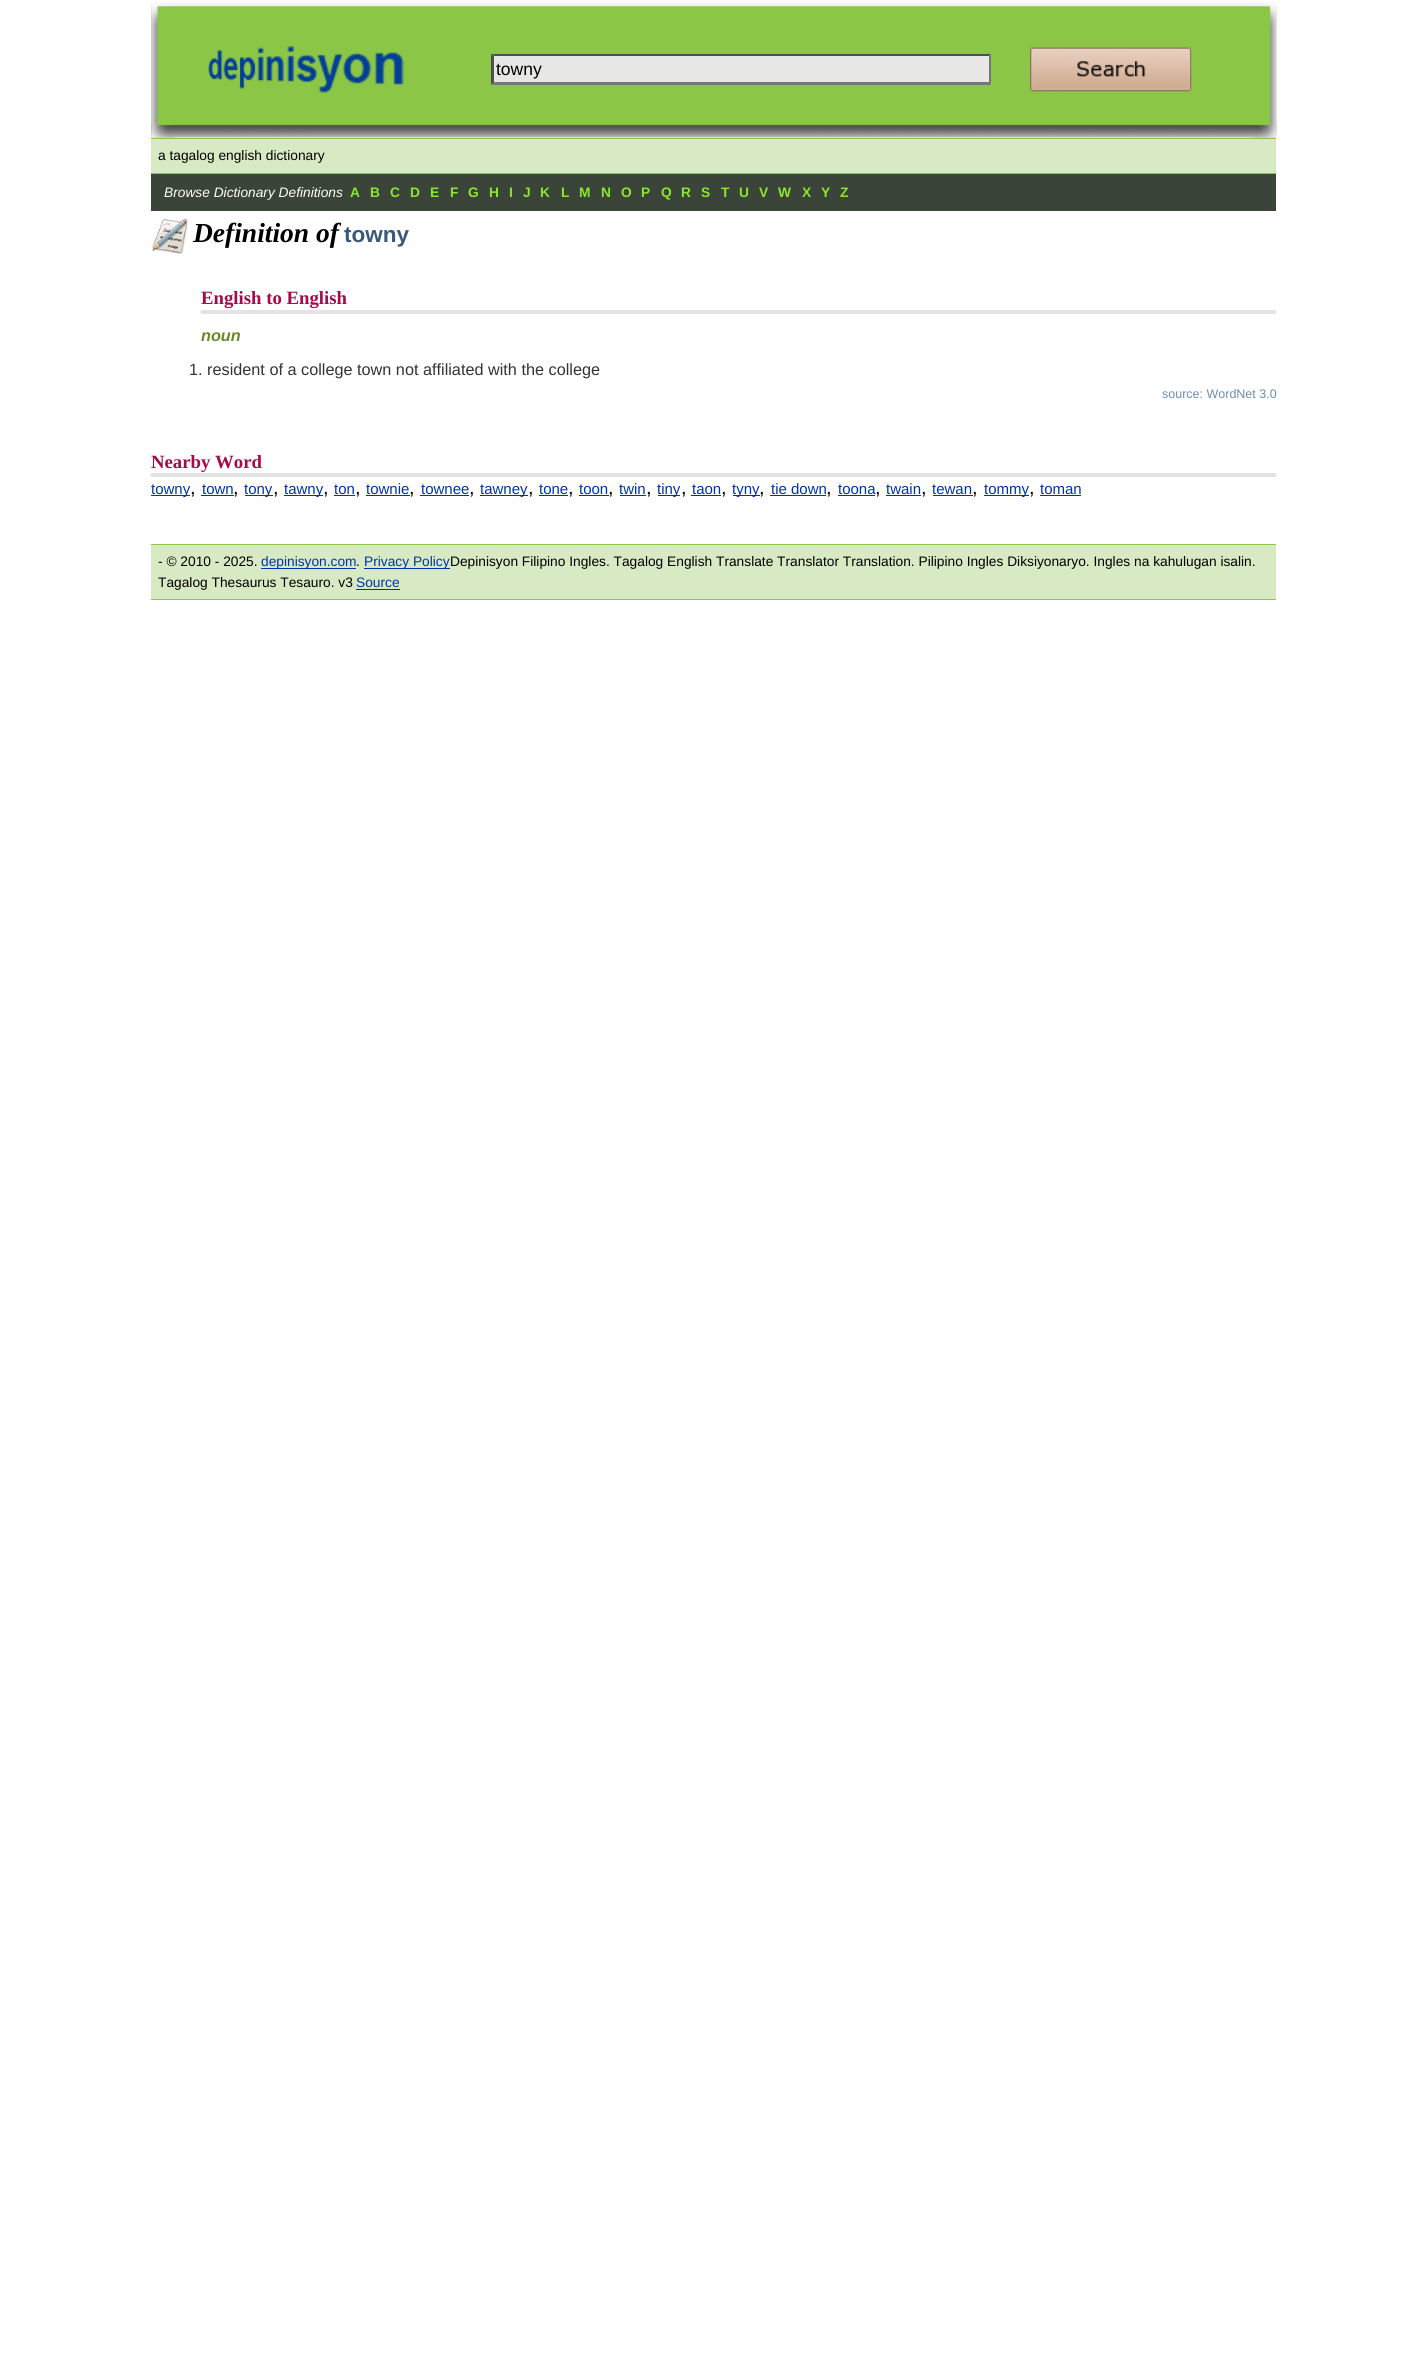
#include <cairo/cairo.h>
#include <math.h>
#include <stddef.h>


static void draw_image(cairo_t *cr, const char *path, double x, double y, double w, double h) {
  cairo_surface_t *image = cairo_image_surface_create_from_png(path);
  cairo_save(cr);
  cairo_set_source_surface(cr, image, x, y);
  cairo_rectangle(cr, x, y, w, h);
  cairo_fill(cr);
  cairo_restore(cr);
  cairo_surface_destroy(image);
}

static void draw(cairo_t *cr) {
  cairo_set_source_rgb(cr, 1, 1, 1);
  cairo_paint(cr);
  draw_image(cr, "images/1.png", 151, 2, 1126, 136);
  draw_image(cr, "images/2.png", 151, 3, 23, 135);
  draw_image(cr, "images/3.png", 208, 46, 196, 47);
  cairo_set_source_rgb(cr, 231 / 255.0, 231 / 255.0, 230 / 255.0);
  cairo_rectangle(cr, 491, 54, 500, 31);
  cairo_fill(cr);
  cairo_set_source_rgb(cr, 79 / 255.0, 79 / 255.0, 79 / 255.0);
  cairo_new_path(cr);
  cairo_move_to(cr, 491, 54);
  cairo_line_to(cr, 991, 54);
  cairo_line_to(cr, 989, 56);
  cairo_line_to(cr, 494, 56);
  cairo_close_path(cr);
  cairo_fill(cr);
  cairo_set_source_rgb(cr, 118 / 255.0, 118 / 255.0, 118 / 255.0);
  cairo_new_path(cr);
  cairo_move_to(cr, 991, 54);
  cairo_line_to(cr, 991, 85);
  cairo_line_to(cr, 989, 82.5);
  cairo_line_to(cr, 989, 56);
  cairo_close_path(cr);
  cairo_fill(cr);
  cairo_new_path(cr);
  cairo_move_to(cr, 991, 85);
  cairo_line_to(cr, 491, 85);
  cairo_line_to(cr, 494, 82);
  cairo_line_to(cr, 989, 82);
  cairo_close_path(cr);
  cairo_fill(cr);
  cairo_set_source_rgb(cr, 79 / 255.0, 79 / 255.0, 79 / 255.0);
  cairo_new_path(cr);
  cairo_move_to(cr, 491, 85);
  cairo_line_to(cr, 491, 54);
  cairo_line_to(cr, 494, 56);
  cairo_line_to(cr, 494, 82.5);
  cairo_close_path(cr);
  cairo_fill(cr);
  draw_image(cr, "images/4.png", 1030, 47, 162, 45);
  draw_image(cr, "images/5.png", 1252, 3, 25, 135);
  cairo_set_source_rgb(cr, 216 / 255.0, 234 / 255.0, 195 / 255.0);
  cairo_rectangle(cr, 151, 139, 1125, 34);
  cairo_fill(cr);
  cairo_set_source_rgb(cr, 139 / 255.0, 198 / 255.0, 70 / 255.0);
  cairo_rectangle(cr, 151, 138, 1125, 1);
  cairo_fill(cr);
  cairo_rectangle(cr, 151, 173, 1125, 1);
  cairo_fill(cr);
  cairo_set_source_rgb(cr, 59 / 255.0, 68 / 255.0, 56 / 255.0);
  cairo_rectangle(cr, 151, 174, 1125, 37);
  cairo_fill(cr);
  draw_image(cr, "images/6.png", 152, 218, 36, 36);
  cairo_set_source_rgb(cr, 226 / 255.0, 227 / 255.0, 227 / 255.0);
  cairo_rectangle(cr, 201, 310, 1075, 4);
  cairo_fill(cr);
  cairo_rectangle(cr, 151, 473, 1125, 4);
  cairo_fill(cr);
  cairo_set_source_rgb(cr, 0, 51 / 255.0, 170 / 255.0);
  cairo_rectangle(cr, 151, 495, 39, 1);
  cairo_fill(cr);
  cairo_rectangle(cr, 201, 495, 33, 1);
  cairo_fill(cr);
  cairo_rectangle(cr, 245, 495, 28, 1);
  cairo_fill(cr);
  cairo_rectangle(cr, 284, 495, 39, 1);
  cairo_fill(cr);
  cairo_rectangle(cr, 334, 495, 21, 1);
  cairo_fill(cr);
  cairo_rectangle(cr, 366, 495, 44, 1);
  cairo_fill(cr);
  cairo_rectangle(cr, 420, 495, 49, 1);
  cairo_fill(cr);
  cairo_rectangle(cr, 480, 495, 48, 1);
  cairo_fill(cr);
  cairo_rectangle(cr, 539, 495, 29, 1);
  cairo_fill(cr);
  cairo_rectangle(cr, 579, 495, 30, 1);
  cairo_fill(cr);
  cairo_rectangle(cr, 620, 495, 26, 1);
  cairo_fill(cr);
  cairo_rectangle(cr, 658, 495, 22, 1);
  cairo_fill(cr);
  cairo_rectangle(cr, 691, 495, 30, 1);
  cairo_fill(cr);
  cairo_rectangle(cr, 733, 495, 27, 1);
  cairo_fill(cr);
  cairo_rectangle(cr, 770, 495, 56, 1);
  cairo_fill(cr);
  cairo_rectangle(cr, 838, 495, 37, 1);
  cairo_fill(cr);
  cairo_rectangle(cr, 886, 495, 35, 1);
  cairo_fill(cr);
  cairo_rectangle(cr, 933, 495, 40, 1);
  cairo_fill(cr);
  cairo_rectangle(cr, 984, 495, 45, 1);
  cairo_fill(cr);
  cairo_rectangle(cr, 1040, 495, 41, 1);
  cairo_fill(cr);
  cairo_set_source_rgb(cr, 216 / 255.0, 234 / 255.0, 195 / 255.0);
  cairo_rectangle(cr, 151, 545, 1125, 54);
  cairo_fill(cr);
  cairo_set_source_rgb(cr, 139 / 255.0, 198 / 255.0, 70 / 255.0);
  cairo_rectangle(cr, 151, 544, 1125, 1);
  cairo_fill(cr);
  cairo_rectangle(cr, 151, 599, 1125, 1);
  cairo_fill(cr);
  cairo_set_source_rgb(cr, 0, 51 / 255.0, 170 / 255.0);
  cairo_rectangle(cr, 261, 568, 95, 1);
  cairo_fill(cr);
  cairo_rectangle(cr, 364, 568, 86, 1);
  cairo_fill(cr);
  cairo_rectangle(cr, 356, 589, 44, 1);
  cairo_fill(cr);
  cairo_select_font_face(cr, "Liberation Sans", CAIRO_FONT_SLANT_NORMAL, CAIRO_FONT_WEIGHT_NORMAL);
  cairo_set_font_size(cr, 17.5);
  cairo_set_source_rgb(cr, 0, 0, 0);
  cairo_move_to(cr, 496, 75);
  cairo_show_text(cr, "towny");
  cairo_set_font_size(cr, 13.75);
  cairo_move_to(cr, 158, 160);
  cairo_show_text(cr, "a tagalog english dictionary");
  cairo_select_font_face(cr, "Liberation Sans", CAIRO_FONT_SLANT_ITALIC, CAIRO_FONT_WEIGHT_NORMAL);
  cairo_set_source_rgb(cr, 1, 1, 1);
  cairo_move_to(cr, 164, 197);
  cairo_show_text(cr, "Browse Dictionary Definitions");
  cairo_select_font_face(cr, "Liberation Sans", CAIRO_FONT_SLANT_NORMAL, CAIRO_FONT_WEIGHT_BOLD);
  cairo_set_source_rgb(cr, 138 / 255.0, 230 / 255.0, 46 / 255.0);
  cairo_move_to(cr, 350, 197);
  cairo_show_text(cr, "A");
  cairo_move_to(cr, 370, 197);
  cairo_show_text(cr, "B");
  cairo_move_to(cr, 390, 197);
  cairo_show_text(cr, "C");
  cairo_move_to(cr, 410, 197);
  cairo_show_text(cr, "D");
  cairo_move_to(cr, 430, 197);
  cairo_show_text(cr, "E");
  cairo_move_to(cr, 450, 197);
  cairo_show_text(cr, "F");
  cairo_move_to(cr, 468, 197);
  cairo_show_text(cr, "G");
  cairo_move_to(cr, 489, 197);
  cairo_show_text(cr, "H");
  cairo_move_to(cr, 509, 197);
  cairo_show_text(cr, "I");
  cairo_move_to(cr, 523, 197);
  cairo_show_text(cr, "J");
  cairo_move_to(cr, 540, 197);
  cairo_show_text(cr, "K");
  cairo_move_to(cr, 561, 197);
  cairo_show_text(cr, "L");
  cairo_move_to(cr, 579, 197);
  cairo_show_text(cr, "M");
  cairo_move_to(cr, 601, 197);
  cairo_show_text(cr, "N");
  cairo_move_to(cr, 621, 197);
  cairo_show_text(cr, "O");
  cairo_move_to(cr, 641, 197);
  cairo_show_text(cr, "P");
  cairo_move_to(cr, 661, 197);
  cairo_show_text(cr, "Q");
  cairo_move_to(cr, 681, 197);
  cairo_show_text(cr, "R");
  cairo_move_to(cr, 701, 197);
  cairo_show_text(cr, "S");
  cairo_move_to(cr, 721, 197);
  cairo_show_text(cr, "T");
  cairo_move_to(cr, 739, 197);
  cairo_show_text(cr, "U");
  cairo_move_to(cr, 759, 197);
  cairo_show_text(cr, "V");
  cairo_move_to(cr, 778, 197);
  cairo_show_text(cr, "W");
  cairo_move_to(cr, 802, 197);
  cairo_show_text(cr, "X");
  cairo_move_to(cr, 821, 197);
  cairo_show_text(cr, "Y");
  cairo_move_to(cr, 840, 197);
  cairo_show_text(cr, "Z");
  cairo_select_font_face(cr, "Liberation Serif", CAIRO_FONT_SLANT_ITALIC, CAIRO_FONT_WEIGHT_BOLD);
  cairo_set_font_size(cr, 27.5);
  cairo_set_source_rgb(cr, 0, 0, 0);
  cairo_move_to(cr, 193, 242);
  cairo_show_text(cr, "Definition of");
  cairo_select_font_face(cr, "Liberation Sans", CAIRO_FONT_SLANT_NORMAL, CAIRO_FONT_WEIGHT_BOLD);
  cairo_set_font_size(cr, 22.5);
  cairo_set_source_rgb(cr, 58 / 255.0, 89 / 255.0, 122 / 255.0);
  cairo_move_to(cr, 344, 242);
  cairo_show_text(cr, "towny");
  cairo_select_font_face(cr, "Liberation Serif", CAIRO_FONT_SLANT_NORMAL, CAIRO_FONT_WEIGHT_BOLD);
  cairo_set_font_size(cr, 18.75);
  cairo_set_source_rgb(cr, 165 / 255.0, 11 / 255.0, 74 / 255.0);
  cairo_move_to(cr, 201, 304);
  cairo_show_text(cr, "English to English");
  cairo_select_font_face(cr, "Liberation Sans", CAIRO_FONT_SLANT_ITALIC, CAIRO_FONT_WEIGHT_BOLD);
  cairo_set_font_size(cr, 16.25);
  cairo_set_source_rgb(cr, 105 / 255.0, 137 / 255.0, 40 / 255.0);
  cairo_move_to(cr, 201, 341);
  cairo_show_text(cr, "noun");
  cairo_select_font_face(cr, "Liberation Sans", CAIRO_FONT_SLANT_NORMAL, CAIRO_FONT_WEIGHT_NORMAL);
  cairo_set_source_rgb(cr, 51 / 255.0, 51 / 255.0, 51 / 255.0);
  cairo_move_to(cr, 189, 375);
  cairo_show_text(cr, "1. resident of a college town not affiliated with the college");
  cairo_set_font_size(cr, 12.5);
  cairo_set_source_rgb(cr, 110 / 255.0, 141 / 255.0, 176 / 255.0);
  cairo_move_to(cr, 1162, 398);
  cairo_show_text(cr, "source: WordNet 3.0");
  cairo_select_font_face(cr, "Liberation Serif", CAIRO_FONT_SLANT_NORMAL, CAIRO_FONT_WEIGHT_BOLD);
  cairo_set_font_size(cr, 18.75);
  cairo_set_source_rgb(cr, 165 / 255.0, 11 / 255.0, 74 / 255.0);
  cairo_move_to(cr, 151, 468);
  cairo_show_text(cr, "Nearby Word");
  cairo_select_font_face(cr, "Liberation Sans", CAIRO_FONT_SLANT_NORMAL, CAIRO_FONT_WEIGHT_NORMAL);
  cairo_set_font_size(cr, 15);
  cairo_set_source_rgb(cr, 0, 51 / 255.0, 170 / 255.0);
  cairo_move_to(cr, 151, 494);
  cairo_show_text(cr, "towny");
  cairo_set_font_size(cr, 20);
  cairo_set_source_rgb(cr, 0, 0, 0);
  cairo_move_to(cr, 190, 494);
  cairo_show_text(cr, ",");
  cairo_set_font_size(cr, 15);
  cairo_set_source_rgb(cr, 0, 51 / 255.0, 170 / 255.0);
  cairo_move_to(cr, 202, 494);
  cairo_show_text(cr, "town");
  cairo_set_font_size(cr, 20);
  cairo_set_source_rgb(cr, 0, 0, 0);
  cairo_move_to(cr, 233, 494);
  cairo_show_text(cr, ",");
  cairo_set_font_size(cr, 15);
  cairo_set_source_rgb(cr, 0, 51 / 255.0, 170 / 255.0);
  cairo_move_to(cr, 244, 494);
  cairo_show_text(cr, "tony");
  cairo_set_font_size(cr, 20);
  cairo_set_source_rgb(cr, 0, 0, 0);
  cairo_move_to(cr, 273, 494);
  cairo_show_text(cr, ",");
  cairo_set_font_size(cr, 15);
  cairo_set_source_rgb(cr, 0, 51 / 255.0, 170 / 255.0);
  cairo_move_to(cr, 284, 494);
  cairo_show_text(cr, "tawny");
  cairo_set_font_size(cr, 20);
  cairo_set_source_rgb(cr, 0, 0, 0);
  cairo_move_to(cr, 323, 494);
  cairo_show_text(cr, ",");
  cairo_set_font_size(cr, 15);
  cairo_set_source_rgb(cr, 0, 51 / 255.0, 170 / 255.0);
  cairo_move_to(cr, 334, 494);
  cairo_show_text(cr, "ton");
  cairo_set_font_size(cr, 20);
  cairo_set_source_rgb(cr, 0, 0, 0);
  cairo_move_to(cr, 355, 494);
  cairo_show_text(cr, ",");
  cairo_set_font_size(cr, 15);
  cairo_set_source_rgb(cr, 0, 51 / 255.0, 170 / 255.0);
  cairo_move_to(cr, 366, 494);
  cairo_show_text(cr, "townie");
  cairo_set_font_size(cr, 20);
  cairo_set_source_rgb(cr, 0, 0, 0);
  cairo_move_to(cr, 409, 494);
  cairo_show_text(cr, ",");
  cairo_set_font_size(cr, 15);
  cairo_set_source_rgb(cr, 0, 51 / 255.0, 170 / 255.0);
  cairo_move_to(cr, 421, 494);
  cairo_show_text(cr, "townee");
  cairo_set_font_size(cr, 20);
  cairo_set_source_rgb(cr, 0, 0, 0);
  cairo_move_to(cr, 469, 494);
  cairo_show_text(cr, ",");
  cairo_set_font_size(cr, 15);
  cairo_set_source_rgb(cr, 0, 51 / 255.0, 170 / 255.0);
  cairo_move_to(cr, 480, 494);
  cairo_show_text(cr, "tawney");
  cairo_set_font_size(cr, 20);
  cairo_set_source_rgb(cr, 0, 0, 0);
  cairo_move_to(cr, 528, 494);
  cairo_show_text(cr, ",");
  cairo_set_font_size(cr, 15);
  cairo_set_source_rgb(cr, 0, 51 / 255.0, 170 / 255.0);
  cairo_move_to(cr, 539, 494);
  cairo_show_text(cr, "tone");
  cairo_set_font_size(cr, 20);
  cairo_set_source_rgb(cr, 0, 0, 0);
  cairo_move_to(cr, 568, 494);
  cairo_show_text(cr, ",");
  cairo_set_font_size(cr, 15);
  cairo_set_source_rgb(cr, 0, 51 / 255.0, 170 / 255.0);
  cairo_move_to(cr, 579, 494);
  cairo_show_text(cr, "toon");
  cairo_set_font_size(cr, 20);
  cairo_set_source_rgb(cr, 0, 0, 0);
  cairo_move_to(cr, 608, 494);
  cairo_show_text(cr, ",");
  cairo_set_font_size(cr, 15);
  cairo_set_source_rgb(cr, 0, 51 / 255.0, 170 / 255.0);
  cairo_move_to(cr, 619, 494);
  cairo_show_text(cr, "twin");
  cairo_set_font_size(cr, 20);
  cairo_set_source_rgb(cr, 0, 0, 0);
  cairo_move_to(cr, 646, 494);
  cairo_show_text(cr, ",");
  cairo_set_font_size(cr, 15);
  cairo_set_source_rgb(cr, 0, 51 / 255.0, 170 / 255.0);
  cairo_move_to(cr, 657, 494);
  cairo_show_text(cr, "tiny");
  cairo_set_font_size(cr, 20);
  cairo_set_source_rgb(cr, 0, 0, 0);
  cairo_move_to(cr, 681, 494);
  cairo_show_text(cr, ",");
  cairo_set_font_size(cr, 15);
  cairo_set_source_rgb(cr, 0, 51 / 255.0, 170 / 255.0);
  cairo_move_to(cr, 692, 494);
  cairo_show_text(cr, "taon");
  cairo_set_font_size(cr, 20);
  cairo_set_source_rgb(cr, 0, 0, 0);
  cairo_move_to(cr, 721, 494);
  cairo_show_text(cr, ",");
  cairo_set_font_size(cr, 15);
  cairo_set_source_rgb(cr, 0, 51 / 255.0, 170 / 255.0);
  cairo_move_to(cr, 732, 494);
  cairo_show_text(cr, "tyny");
  cairo_set_font_size(cr, 20);
  cairo_set_source_rgb(cr, 0, 0, 0);
  cairo_move_to(cr, 759, 494);
  cairo_show_text(cr, ",");
  cairo_set_font_size(cr, 15);
  cairo_set_source_rgb(cr, 0, 51 / 255.0, 170 / 255.0);
  cairo_move_to(cr, 771, 494);
  cairo_show_text(cr, "tie down");
  cairo_set_font_size(cr, 20);
  cairo_set_source_rgb(cr, 0, 0, 0);
  cairo_move_to(cr, 826, 494);
  cairo_show_text(cr, ",");
  cairo_set_font_size(cr, 15);
  cairo_set_source_rgb(cr, 0, 51 / 255.0, 170 / 255.0);
  cairo_move_to(cr, 838, 494);
  cairo_show_text(cr, "toona");
  cairo_set_font_size(cr, 20);
  cairo_set_source_rgb(cr, 0, 0, 0);
  cairo_move_to(cr, 875, 494);
  cairo_show_text(cr, ",");
  cairo_set_font_size(cr, 15);
  cairo_set_source_rgb(cr, 0, 51 / 255.0, 170 / 255.0);
  cairo_move_to(cr, 886, 494);
  cairo_show_text(cr, "twain");
  cairo_set_font_size(cr, 20);
  cairo_set_source_rgb(cr, 0, 0, 0);
  cairo_move_to(cr, 921, 494);
  cairo_show_text(cr, ",");
  cairo_set_font_size(cr, 15);
  cairo_set_source_rgb(cr, 0, 51 / 255.0, 170 / 255.0);
  cairo_move_to(cr, 932, 494);
  cairo_show_text(cr, "tewan");
  cairo_set_font_size(cr, 20);
  cairo_set_source_rgb(cr, 0, 0, 0);
  cairo_move_to(cr, 972, 494);
  cairo_show_text(cr, ",");
  cairo_set_font_size(cr, 15);
  cairo_set_source_rgb(cr, 0, 51 / 255.0, 170 / 255.0);
  cairo_move_to(cr, 984, 494);
  cairo_show_text(cr, "tommy");
  cairo_set_font_size(cr, 20);
  cairo_set_source_rgb(cr, 0, 0, 0);
  cairo_move_to(cr, 1029, 494);
  cairo_show_text(cr, ",");
  cairo_set_font_size(cr, 15);
  cairo_set_source_rgb(cr, 0, 51 / 255.0, 170 / 255.0);
  cairo_move_to(cr, 1040, 494);
  cairo_show_text(cr, "toman");
  cairo_set_font_size(cr, 13.75);
  cairo_set_source_rgb(cr, 0, 0, 0);
  cairo_move_to(cr, 158, 566);
  cairo_show_text(cr, "- © 2010 - 2025.");
  cairo_set_source_rgb(cr, 0, 51 / 255.0, 170 / 255.0);
  cairo_move_to(cr, 261, 566);
  cairo_show_text(cr, "depinisyon.com");
  cairo_set_source_rgb(cr, 0, 0, 0);
  cairo_move_to(cr, 356, 566);
  cairo_show_text(cr, ".");
  cairo_set_source_rgb(cr, 0, 51 / 255.0, 170 / 255.0);
  cairo_move_to(cr, 364, 566);
  cairo_show_text(cr, "Privacy Policy");
  cairo_set_source_rgb(cr, 0, 0, 0);
  cairo_move_to(cr, 450, 566);
  cairo_show_text(cr, "Depinisyon Filipino Ingles. Tagalog English Translate Translator Translation. Pilipino Ingles Diksiyonaryo. Ingles na kahulugan isalin.");
  cairo_move_to(cr, 158, 587);
  cairo_show_text(cr, "Tagalog Thesaurus Tesauro. v3");
  cairo_set_source_rgb(cr, 0, 51 / 255.0, 170 / 255.0);
  cairo_move_to(cr, 356, 587);
  cairo_show_text(cr, "Source");
}

int main(void) {
  cairo_surface_t *surface = cairo_image_surface_create(CAIRO_FORMAT_RGB24, 1427, 2363);
  cairo_t *cr = cairo_create(surface);
  cairo_font_options_t *options = cairo_font_options_create();
  cairo_font_options_set_hint_metrics(options, CAIRO_HINT_METRICS_OFF);
  cairo_font_options_set_hint_style(options, CAIRO_HINT_STYLE_NONE);
  cairo_set_font_options(cr, options);
  cairo_set_miter_limit(cr, 4);
  draw(cr);
  cairo_surface_write_to_png(surface, "out.png");
  cairo_font_options_destroy(options);
  cairo_destroy(cr);
  cairo_surface_destroy(surface);
  return 0;
}
